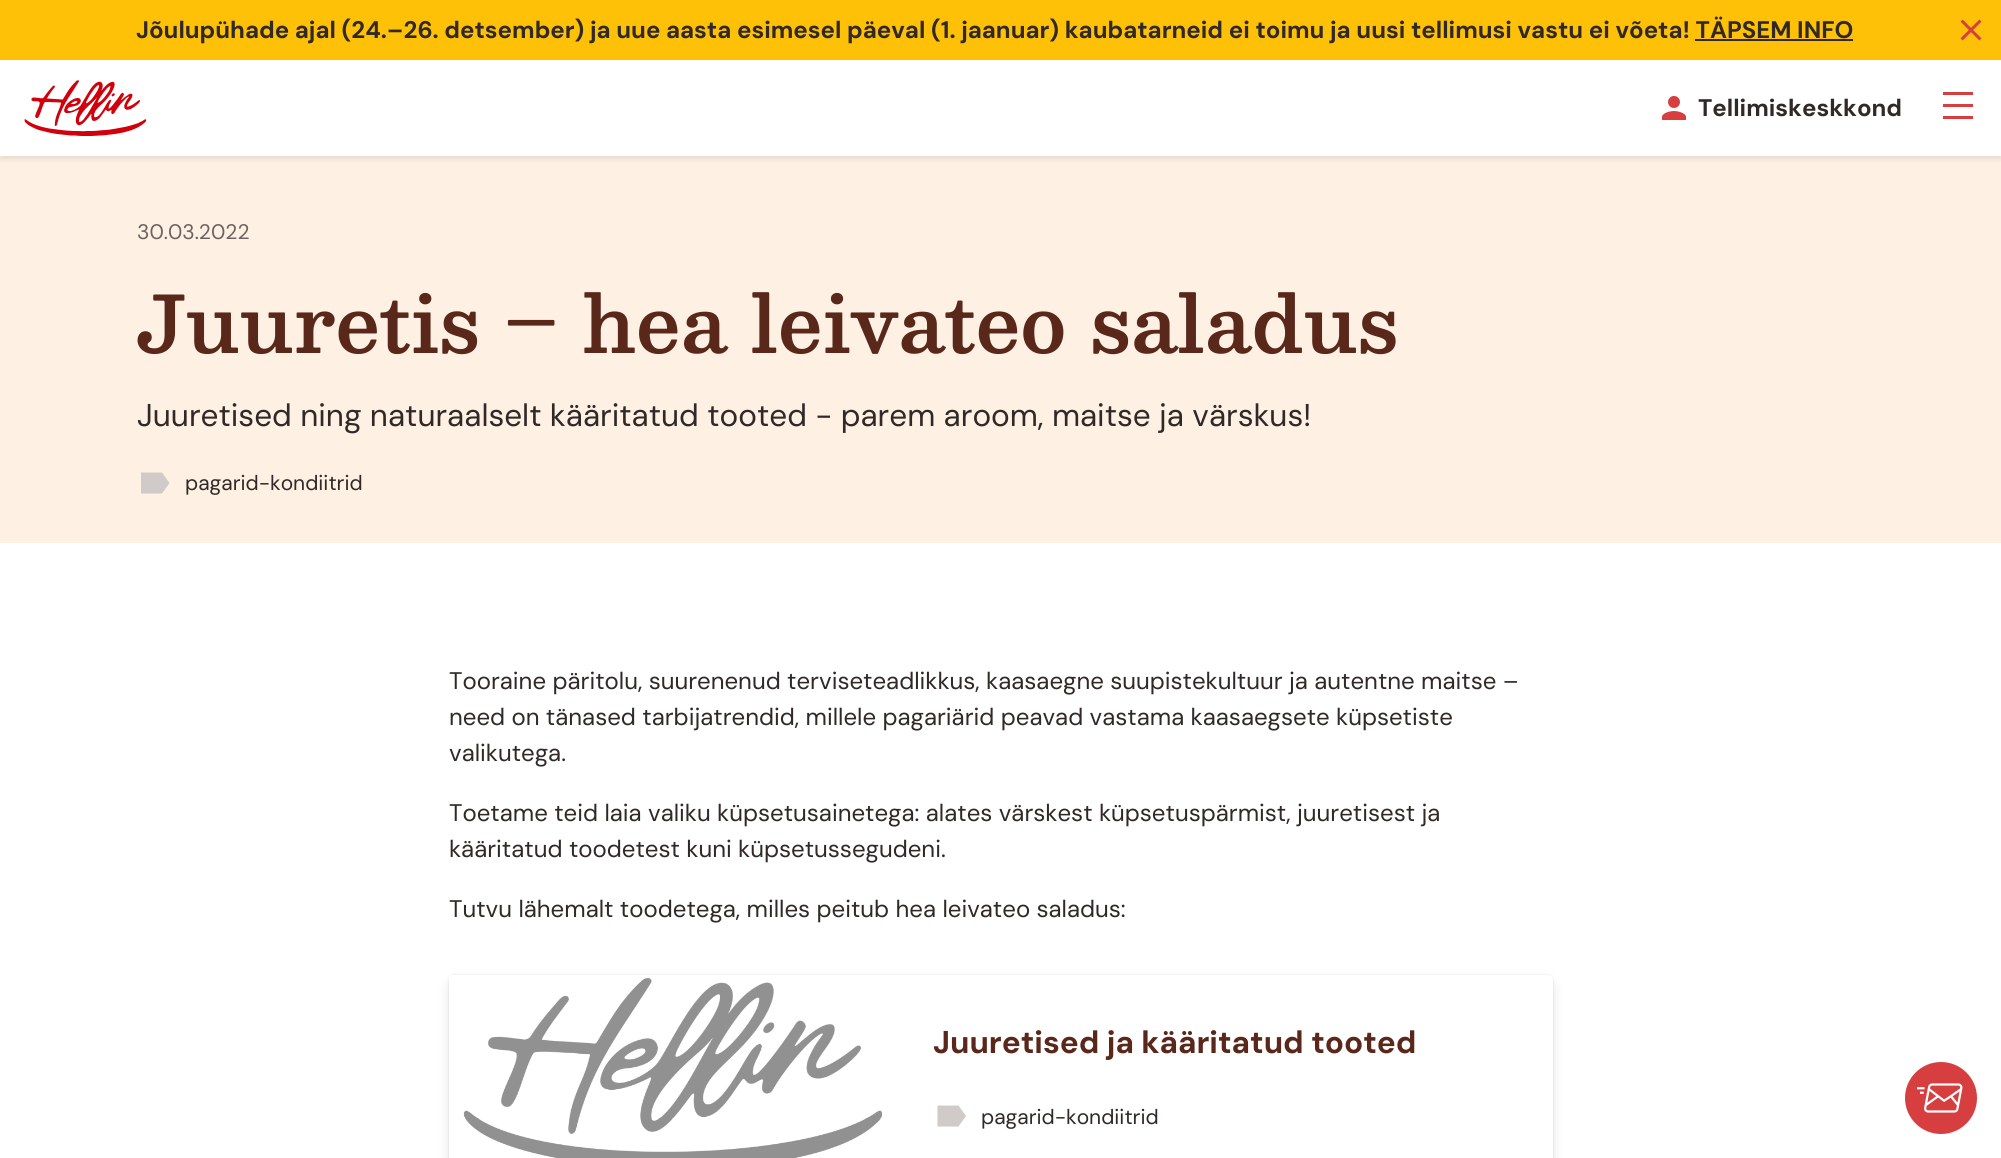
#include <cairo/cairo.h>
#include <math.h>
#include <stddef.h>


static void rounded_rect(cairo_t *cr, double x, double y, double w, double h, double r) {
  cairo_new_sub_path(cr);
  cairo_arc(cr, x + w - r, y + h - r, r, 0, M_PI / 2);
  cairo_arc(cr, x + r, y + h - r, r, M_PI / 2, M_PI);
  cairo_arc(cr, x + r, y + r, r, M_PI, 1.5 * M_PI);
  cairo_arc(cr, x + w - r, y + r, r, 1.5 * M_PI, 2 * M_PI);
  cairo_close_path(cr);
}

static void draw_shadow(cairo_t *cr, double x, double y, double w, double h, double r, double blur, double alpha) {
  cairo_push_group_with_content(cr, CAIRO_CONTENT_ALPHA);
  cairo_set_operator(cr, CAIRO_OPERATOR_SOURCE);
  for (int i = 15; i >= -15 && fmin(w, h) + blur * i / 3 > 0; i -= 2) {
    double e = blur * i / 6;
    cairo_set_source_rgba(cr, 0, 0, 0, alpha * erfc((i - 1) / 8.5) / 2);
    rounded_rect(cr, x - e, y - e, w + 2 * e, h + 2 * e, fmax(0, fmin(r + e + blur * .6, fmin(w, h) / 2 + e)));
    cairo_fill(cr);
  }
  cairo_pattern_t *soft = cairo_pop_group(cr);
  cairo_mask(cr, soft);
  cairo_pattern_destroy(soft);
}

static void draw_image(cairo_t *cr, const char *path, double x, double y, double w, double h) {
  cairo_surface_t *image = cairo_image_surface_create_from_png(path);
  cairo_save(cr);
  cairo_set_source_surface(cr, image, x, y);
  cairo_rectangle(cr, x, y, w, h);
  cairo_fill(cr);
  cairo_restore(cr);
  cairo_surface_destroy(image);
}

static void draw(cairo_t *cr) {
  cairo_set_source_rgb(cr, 1, 1, 1);
  cairo_paint(cr);
  cairo_set_source_rgb(cr, 1, 193 / 255.0, 7 / 255.0);
  cairo_rectangle(cr, 0, 0, 2001, 60);
  cairo_fill(cr);
  cairo_set_source_rgb(cr, 48 / 255.0, 41 / 255.0, 39 / 255.0);
  cairo_rectangle(cr, 1695, 39, 158, 2);
  cairo_fill(cr);
  draw_image(cr, "images/1.png", 1960, 19, 22, 22);
  cairo_set_source_rgb(cr, 254 / 255.0, 241 / 255.0, 228 / 255.0);
  cairo_rectangle(cr, 0, 156, 2001, 387);
  cairo_fill(cr);
  cairo_save(cr);
  cairo_rectangle(cr, 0, 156, 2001, 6);
  cairo_clip(cr);
  cairo_set_source_rgb(cr, 0, 0, 0);
  draw_shadow(cr, 0, 63, 2001, 96, 0, 3, 0.1);
  cairo_restore(cr);
  draw_image(cr, "images/2.png", 24, 80, 123, 56);
  draw_image(cr, "images/3.png", 1661, 96, 26, 24);
  cairo_set_source_rgb(cr, 215 / 255.0, 62 / 255.0, 63 / 255.0);
  cairo_rectangle(cr, 1943, 92, 30, 3);
  cairo_fill(cr);
  cairo_rectangle(cr, 1943, 104, 30, 3);
  cairo_fill(cr);
  cairo_rectangle(cr, 1943, 116, 30, 3);
  cairo_fill(cr);
  cairo_set_source_rgb(cr, 208 / 255.0, 202 / 255.0, 200 / 255.0);
  cairo_new_path(cr);
  cairo_move_to(cr, 162, 472.5);
  cairo_line_to(cr, 141, 472.5);
  cairo_line_to(cr, 141, 493.5);
  cairo_line_to(cr, 162, 493.5);
  cairo_line_to(cr, 169.5, 483);
  cairo_close_path(cr);
  cairo_fill(cr);
  cairo_save(cr);
  cairo_set_fill_rule(cr, CAIRO_FILL_RULE_EVEN_ODD);
  cairo_new_path(cr);
  cairo_move_to(cr, 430, 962);
  cairo_line_to(cr, 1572, 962);
  cairo_line_to(cr, 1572, 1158);
  cairo_line_to(cr, 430, 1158);
  cairo_close_path(cr);
  cairo_move_to(cr, 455, 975);
  cairo_line_to(cr, 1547, 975);
  cairo_curve_to(cr, 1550.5, 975, 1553, 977.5, 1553, 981);
  cairo_line_to(cr, 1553, 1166);
  cairo_curve_to(cr, 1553, 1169.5, 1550.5, 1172, 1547, 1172);
  cairo_line_to(cr, 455, 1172);
  cairo_curve_to(cr, 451.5, 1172, 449, 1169.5, 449, 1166);
  cairo_line_to(cr, 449, 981);
  cairo_curve_to(cr, 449, 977.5, 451.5, 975, 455, 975);
  cairo_close_path(cr);
  cairo_clip(cr);
  cairo_set_source_rgb(cr, 0, 0, 0);
  draw_shadow(cr, 449, 981, 1104, 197, 6, 6, 0.1);
  cairo_restore(cr);
  cairo_save(cr);
  cairo_set_fill_rule(cr, CAIRO_FILL_RULE_EVEN_ODD);
  cairo_new_path(cr);
  cairo_move_to(cr, 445, 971);
  cairo_line_to(cr, 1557, 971);
  cairo_line_to(cr, 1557, 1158);
  cairo_line_to(cr, 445, 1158);
  cairo_close_path(cr);
  cairo_move_to(cr, 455, 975);
  cairo_line_to(cr, 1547, 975);
  cairo_curve_to(cr, 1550.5, 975, 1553, 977.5, 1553, 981);
  cairo_line_to(cr, 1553, 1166);
  cairo_curve_to(cr, 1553, 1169.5, 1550.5, 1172, 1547, 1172);
  cairo_line_to(cr, 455, 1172);
  cairo_curve_to(cr, 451.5, 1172, 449, 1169.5, 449, 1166);
  cairo_line_to(cr, 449, 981);
  cairo_curve_to(cr, 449, 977.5, 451.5, 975, 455, 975);
  cairo_close_path(cr);
  cairo_clip(cr);
  cairo_set_source_rgb(cr, 0, 0, 0);
  draw_shadow(cr, 449, 975, 1104, 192, 6, 1, 0.1);
  cairo_restore(cr);
  draw_image(cr, "images/4.png", 463, 978, 419, 180);
  cairo_new_path(cr);
  cairo_move_to(cr, 958.5, 1105.5);
  cairo_line_to(cr, 937.5, 1105.5);
  cairo_line_to(cr, 937.5, 1126.5);
  cairo_line_to(cr, 958.5, 1126.5);
  cairo_line_to(cr, 966, 1116);
  cairo_close_path(cr);
  cairo_fill(cr);
  cairo_set_source_rgb(cr, 215 / 255.0, 62 / 255.0, 63 / 255.0);
  cairo_arc(cr, 1941, 1098, 36, 0, 2 * M_PI);
  cairo_fill(cr);
  draw_image(cr, "images/5.png", 1917, 1083, 46, 30);
  cairo_select_font_face(cr, "DM Sans", CAIRO_FONT_SLANT_NORMAL, CAIRO_FONT_WEIGHT_BOLD);
  cairo_set_font_size(cr, 24);
  cairo_set_source_rgb(cr, 48 / 255.0, 41 / 255.0, 39 / 255.0);
  cairo_move_to(cr, 136, 38);
  cairo_show_text(cr, "Jõulupühade ajal (24.–26. detsember) ja uue aasta esimesel päeval (1. jaanuar) kaubatarneid ei toimu ja uusi tellimusi vastu ei võeta! TÄPSEM INFO");
  cairo_move_to(cr, 1698, 116);
  cairo_show_text(cr, "Tellimiskeskkond");
  cairo_select_font_face(cr, "DM Sans", CAIRO_FONT_SLANT_NORMAL, CAIRO_FONT_WEIGHT_NORMAL);
  cairo_set_font_size(cr, 21);
  cairo_set_source_rgb(cr, 108 / 255.0, 99 / 255.0, 96 / 255.0);
  cairo_move_to(cr, 137, 239);
  cairo_show_text(cr, "30.03.2022");
  cairo_select_font_face(cr, "Besley SemiBold", CAIRO_FONT_SLANT_NORMAL, CAIRO_FONT_WEIGHT_NORMAL);
  cairo_set_font_size(cr, 78);
  cairo_set_source_rgb(cr, 90 / 255.0, 40 / 255.0, 26 / 255.0);
  cairo_move_to(cr, 137, 353);
  cairo_show_text(cr, "Juuretis – hea leivateo saladus");
  cairo_select_font_face(cr, "DM Sans", CAIRO_FONT_SLANT_NORMAL, CAIRO_FONT_WEIGHT_NORMAL);
  cairo_set_font_size(cr, 31.5);
  cairo_set_source_rgb(cr, 48 / 255.0, 41 / 255.0, 39 / 255.0);
  cairo_move_to(cr, 137, 426);
  cairo_show_text(cr, "Juuretised ning naturaalselt kääritatud tooted - parem aroom, maitse ja värskus!");
  cairo_set_font_size(cr, 21);
  cairo_move_to(cr, 185, 490);
  cairo_show_text(cr, "pagarid-kondiitrid");
  cairo_set_font_size(cr, 24);
  cairo_move_to(cr, 449, 689);
  cairo_show_text(cr, "Tooraine päritolu, suurenenud terviseteadlikkus, kaasaegne suupistekultuur ja autentne maitse –");
  cairo_move_to(cr, 449, 725);
  cairo_show_text(cr, "need on tänased tarbijatrendid, millele pagariärid peavad vastama kaasaegsete küpsetiste");
  cairo_move_to(cr, 449, 761);
  cairo_show_text(cr, "valikutega.");
  cairo_move_to(cr, 449, 821);
  cairo_show_text(cr, "Toetame teid laia valiku küpsetusainetega: alates värskest küpsetuspärmist, juuretisest ja");
  cairo_move_to(cr, 449, 857);
  cairo_show_text(cr, "kääritatud toodetest kuni küpsetussegudeni.");
  cairo_move_to(cr, 449, 917);
  cairo_show_text(cr, "Tutvu lähemalt toodetega, milles peitub hea leivateo saladus:");
  cairo_select_font_face(cr, "DM Sans", CAIRO_FONT_SLANT_NORMAL, CAIRO_FONT_WEIGHT_BOLD);
  cairo_set_font_size(cr, 31.5);
  cairo_set_source_rgb(cr, 90 / 255.0, 40 / 255.0, 26 / 255.0);
  cairo_move_to(cr, 933, 1053);
  cairo_show_text(cr, "Juuretised ja kääritatud tooted");
  cairo_select_font_face(cr, "DM Sans", CAIRO_FONT_SLANT_NORMAL, CAIRO_FONT_WEIGHT_NORMAL);
  cairo_set_font_size(cr, 21);
  cairo_set_source_rgb(cr, 48 / 255.0, 41 / 255.0, 39 / 255.0);
  cairo_move_to(cr, 981, 1124);
  cairo_show_text(cr, "pagarid-kondiitrid");
}

int main(void) {
  cairo_surface_t *surface = cairo_image_surface_create(CAIRO_FORMAT_RGB24, 2001, 1158);
  cairo_t *cr = cairo_create(surface);
  cairo_font_options_t *options = cairo_font_options_create();
  cairo_font_options_set_hint_metrics(options, CAIRO_HINT_METRICS_OFF);
  cairo_font_options_set_hint_style(options, CAIRO_HINT_STYLE_NONE);
  cairo_set_font_options(cr, options);
  cairo_set_miter_limit(cr, 4);
  draw(cr);
  cairo_surface_write_to_png(surface, "out.png");
  cairo_font_options_destroy(options);
  cairo_destroy(cr);
  cairo_surface_destroy(surface);
  return 0;
}
